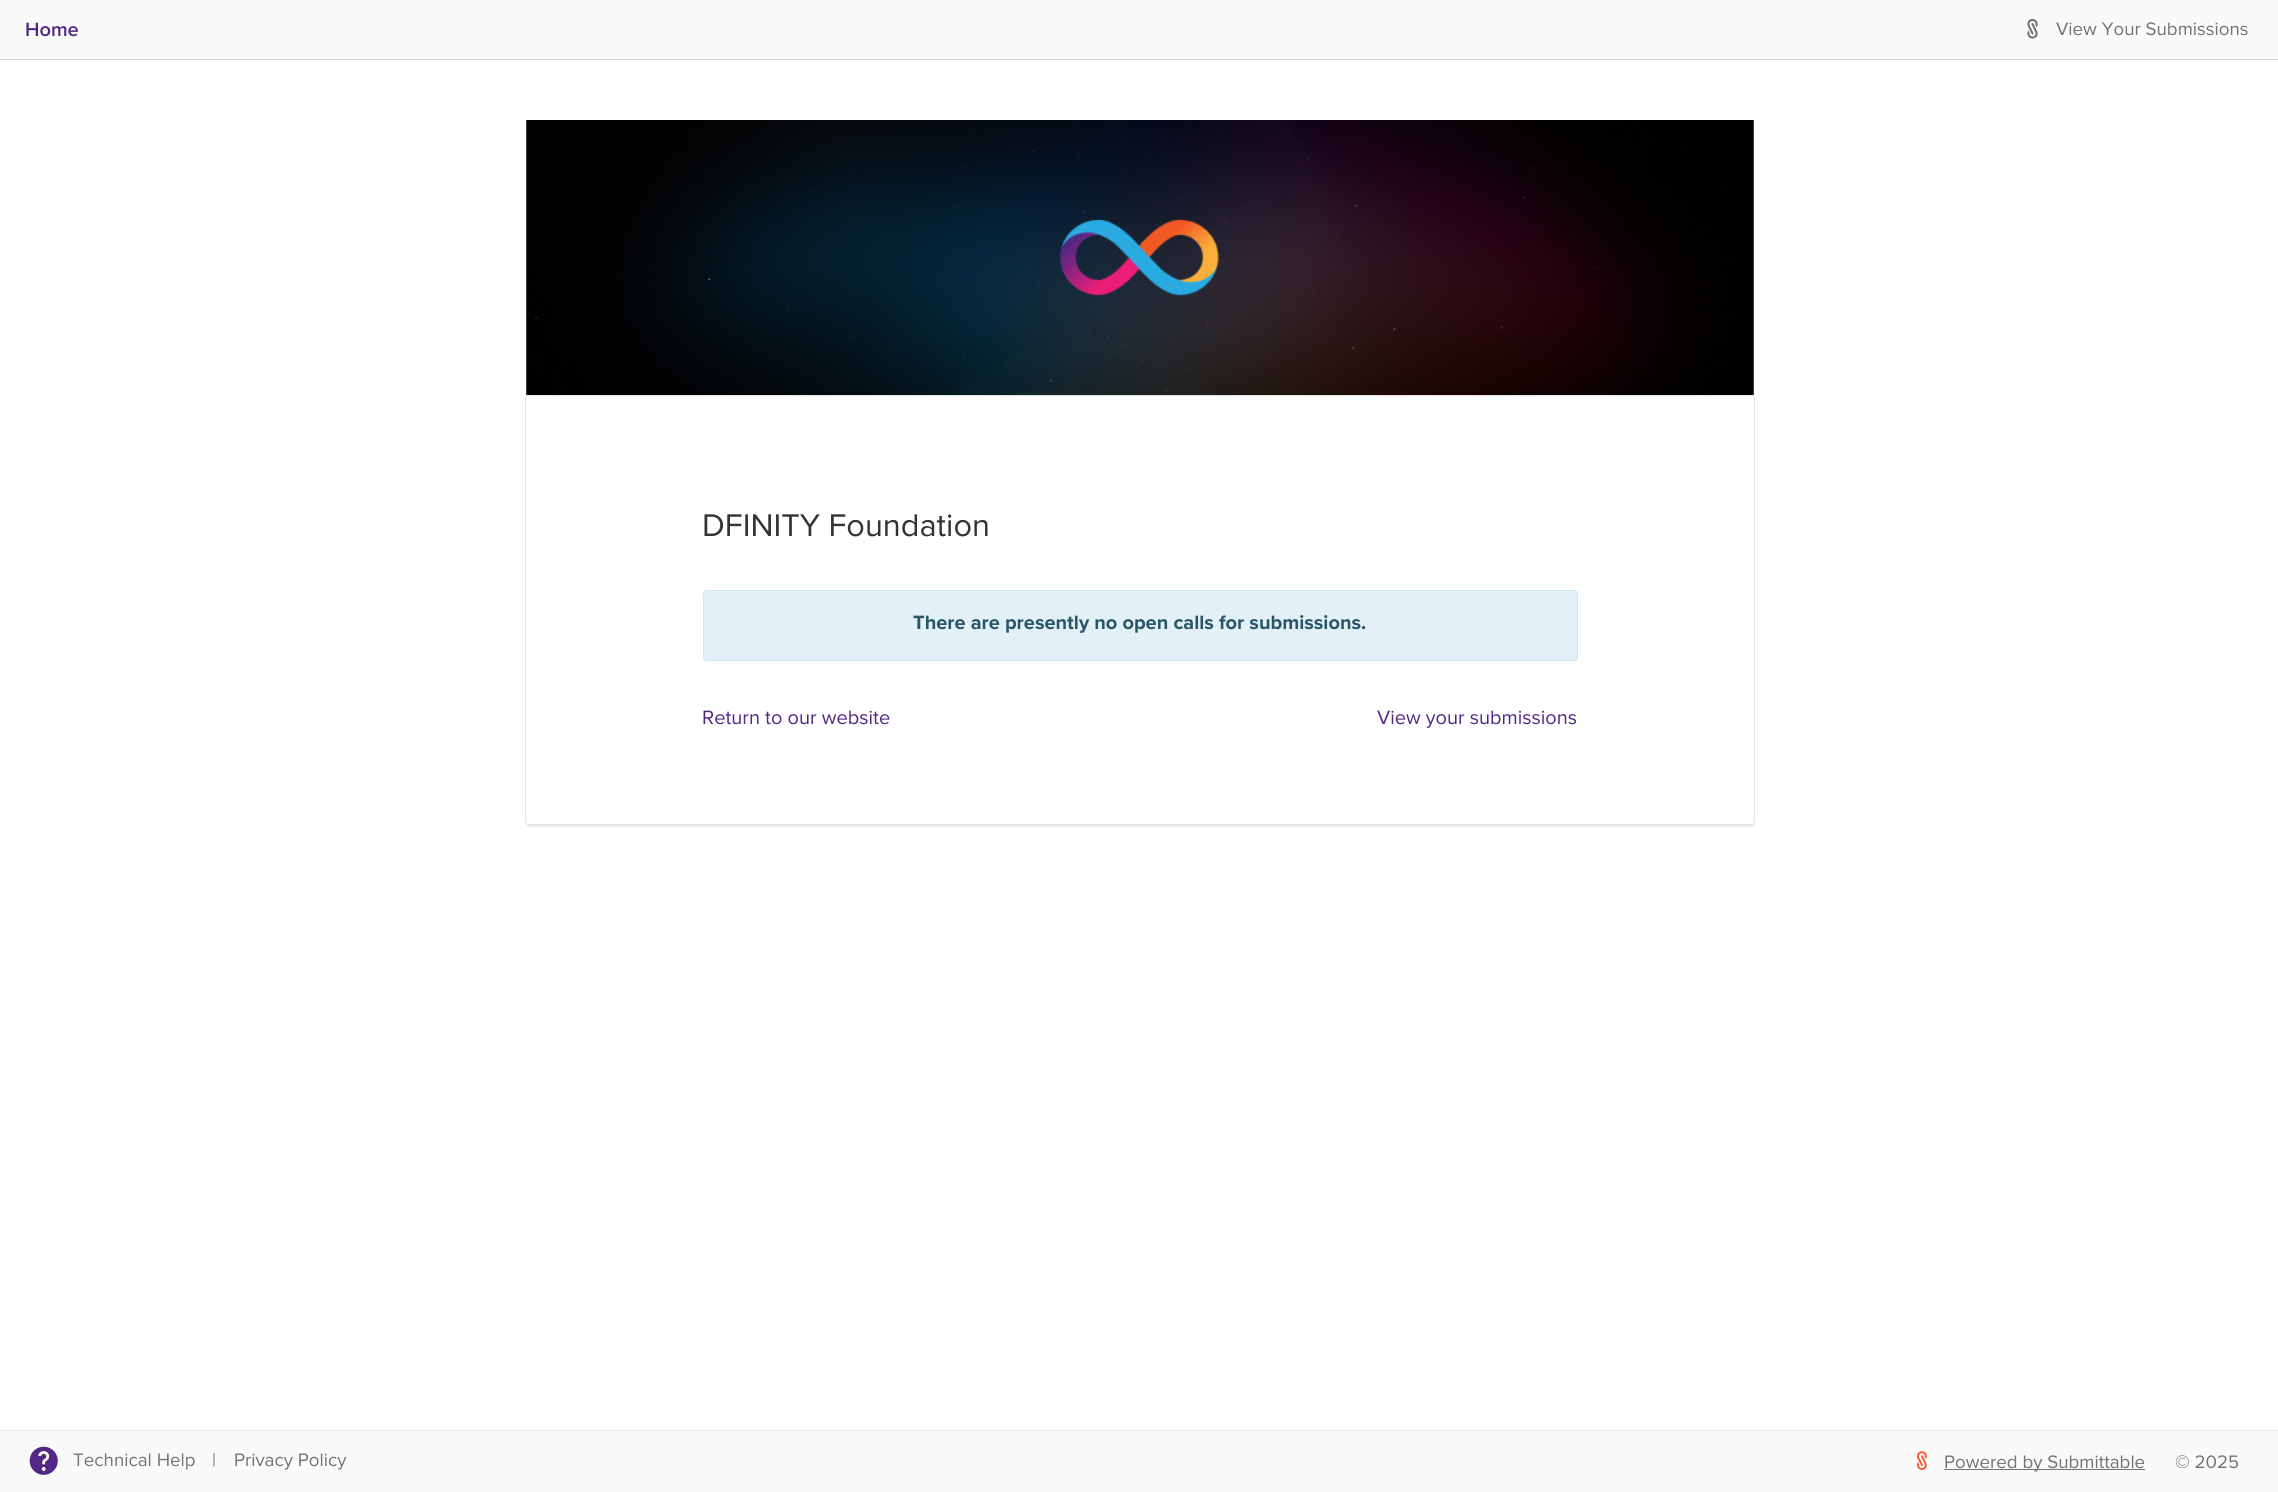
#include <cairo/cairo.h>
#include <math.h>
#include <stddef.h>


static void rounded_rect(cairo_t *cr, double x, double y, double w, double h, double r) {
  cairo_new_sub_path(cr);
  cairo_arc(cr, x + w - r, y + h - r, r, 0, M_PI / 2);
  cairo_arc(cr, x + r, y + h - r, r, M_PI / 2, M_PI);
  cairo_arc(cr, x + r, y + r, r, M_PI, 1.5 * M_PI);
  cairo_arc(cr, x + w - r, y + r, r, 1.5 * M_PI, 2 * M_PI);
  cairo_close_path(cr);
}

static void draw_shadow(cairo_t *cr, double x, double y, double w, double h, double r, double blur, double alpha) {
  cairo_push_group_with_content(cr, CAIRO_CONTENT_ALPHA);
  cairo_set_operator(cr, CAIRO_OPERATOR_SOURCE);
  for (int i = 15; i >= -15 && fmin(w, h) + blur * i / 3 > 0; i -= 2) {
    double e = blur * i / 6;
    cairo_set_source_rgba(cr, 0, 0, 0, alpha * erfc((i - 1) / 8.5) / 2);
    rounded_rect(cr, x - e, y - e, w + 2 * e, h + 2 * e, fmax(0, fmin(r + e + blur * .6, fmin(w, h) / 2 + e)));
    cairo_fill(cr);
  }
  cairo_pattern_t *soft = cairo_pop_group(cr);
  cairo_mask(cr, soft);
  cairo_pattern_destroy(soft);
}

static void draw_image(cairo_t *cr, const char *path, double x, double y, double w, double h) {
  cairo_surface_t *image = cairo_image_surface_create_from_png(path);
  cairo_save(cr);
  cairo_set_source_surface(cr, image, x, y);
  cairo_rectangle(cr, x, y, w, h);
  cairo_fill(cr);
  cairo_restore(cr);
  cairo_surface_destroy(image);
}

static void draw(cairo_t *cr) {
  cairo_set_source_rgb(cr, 1, 1, 1);
  cairo_paint(cr);
  cairo_set_source_rgb(cr, 250 / 255.0, 250 / 255.0, 250 / 255.0);
  cairo_rectangle(cr, 0, 0, 2278, 59);
  cairo_fill(cr);
  cairo_set_source_rgb(cr, 213 / 255.0, 213 / 255.0, 213 / 255.0);
  cairo_rectangle(cr, 0, 59, 2278, 1);
  cairo_fill(cr);
  draw_image(cr, "images/1.png", 2027, 18, 11, 21);
  cairo_save(cr);
  cairo_set_fill_rule(cr, CAIRO_FILL_RULE_EVEN_ODD);
  cairo_new_path(cr);
  cairo_move_to(cr, 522, 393);
  cairo_line_to(cr, 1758, 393);
  cairo_line_to(cr, 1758, 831);
  cairo_line_to(cr, 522, 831);
  cairo_close_path(cr);
  cairo_move_to(cr, 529, 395);
  cairo_line_to(cr, 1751, 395);
  cairo_curve_to(cr, 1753, 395, 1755, 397, 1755, 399);
  cairo_line_to(cr, 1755, 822);
  cairo_curve_to(cr, 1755, 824, 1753, 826, 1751, 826);
  cairo_line_to(cr, 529, 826);
  cairo_curve_to(cr, 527, 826, 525, 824, 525, 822);
  cairo_line_to(cr, 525, 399);
  cairo_curve_to(cr, 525, 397, 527, 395, 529, 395);
  cairo_close_path(cr);
  cairo_clip(cr);
  cairo_set_source_rgb(cr, 0, 0, 0);
  draw_shadow(cr, 525, 396, 1230, 432, 4, 0.5, 0.05);
  cairo_restore(cr);
  draw_image(cr, "images/2.png", 526, 120, 1228, 275);
  rounded_rect(cr, 525.5, 395.5, 1229, 430, 3.5);
  cairo_set_source_rgb(cr, 229 / 255.0, 229 / 255.0, 229 / 255.0);
  cairo_set_line_width(cr, 1);
  cairo_stroke(cr);
  cairo_rectangle(cr, 528, 824, 1226, 1);
  cairo_fill(cr);
  cairo_set_source_rgb(cr, 227 / 255.0, 240 / 255.0, 247 / 255.0);
  rounded_rect(cr, 703.5, 590.5, 874, 70, 3.5);
  cairo_fill_preserve(cr);
  cairo_set_source_rgb(cr, 199 / 255.0, 232 / 255.0, 239 / 255.0);
  cairo_stroke(cr);
  cairo_set_source_rgb(cr, 250 / 255.0, 250 / 255.0, 250 / 255.0);
  cairo_rectangle(cr, 0, 1431, 2278, 61);
  cairo_fill(cr);
  cairo_set_source_rgb(cr, 234 / 255.0, 234 / 255.0, 234 / 255.0);
  cairo_rectangle(cr, 0, 1430, 2278, 1);
  cairo_fill(cr);
  draw_image(cr, "images/3.png", 29, 1446, 29, 29);
  draw_image(cr, "images/4.png", 1917, 1451, 10, 19);
  cairo_set_source_rgb(cr, 115 / 255.0, 115 / 255.0, 115 / 255.0);
  cairo_rectangle(cr, 1944, 1469, 201, 1);
  cairo_fill(cr);
  cairo_select_font_face(cr, "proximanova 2", CAIRO_FONT_SLANT_NORMAL, CAIRO_FONT_WEIGHT_NORMAL);
  cairo_set_font_size(cr, 20);
  cairo_set_source_rgb(cr, 82 / 255.0, 39 / 255.0, 133 / 255.0);
  cairo_move_to(cr, 25, 36);
  cairo_show_text(cr, "Home");
  cairo_select_font_face(cr, "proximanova", CAIRO_FONT_SLANT_NORMAL, CAIRO_FONT_WEIGHT_NORMAL);
  cairo_set_font_size(cr, 18.75);
  cairo_set_source_rgb(cr, 115 / 255.0, 115 / 255.0, 115 / 255.0);
  cairo_move_to(cr, 2056, 35);
  cairo_show_text(cr, "View Your Submissions");
  cairo_set_font_size(cr, 32.5);
  cairo_set_source_rgb(cr, 51 / 255.0, 51 / 255.0, 51 / 255.0);
  cairo_move_to(cr, 702, 536);
  cairo_show_text(cr, "DFINITY Foundation");
  cairo_select_font_face(cr, "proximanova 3", CAIRO_FONT_SLANT_NORMAL, CAIRO_FONT_WEIGHT_NORMAL);
  cairo_set_font_size(cr, 20);
  cairo_set_source_rgb(cr, 39 / 255.0, 86 / 255.0, 105 / 255.0);
  cairo_move_to(cr, 913, 629);
  cairo_show_text(cr, "There are presently no open calls for submissions.");
  cairo_select_font_face(cr, "proximanova", CAIRO_FONT_SLANT_NORMAL, CAIRO_FONT_WEIGHT_NORMAL);
  cairo_set_source_rgb(cr, 82 / 255.0, 39 / 255.0, 133 / 255.0);
  cairo_move_to(cr, 702, 724);
  cairo_show_text(cr, "Return to our website");
  cairo_move_to(cr, 1377, 724);
  cairo_show_text(cr, "View your submissions");
  cairo_set_font_size(cr, 18.75);
  cairo_set_source_rgb(cr, 115 / 255.0, 115 / 255.0, 115 / 255.0);
  cairo_move_to(cr, 73, 1466);
  cairo_show_text(cr, "Technical Help");
  cairo_move_to(cr, 212, 1466);
  cairo_show_text(cr, "|");
  cairo_move_to(cr, 234, 1466);
  cairo_show_text(cr, "Privacy Policy");
  cairo_move_to(cr, 1944, 1468);
  cairo_show_text(cr, "Powered by Submittable");
  cairo_move_to(cr, 2175, 1468);
  cairo_show_text(cr, "© 2025");
}

int main(void) {
  cairo_surface_t *surface = cairo_image_surface_create(CAIRO_FORMAT_RGB24, 2278, 1492);
  cairo_t *cr = cairo_create(surface);
  cairo_font_options_t *options = cairo_font_options_create();
  cairo_font_options_set_hint_metrics(options, CAIRO_HINT_METRICS_OFF);
  cairo_font_options_set_hint_style(options, CAIRO_HINT_STYLE_NONE);
  cairo_set_font_options(cr, options);
  cairo_set_miter_limit(cr, 4);
  draw(cr);
  cairo_surface_write_to_png(surface, "out.png");
  cairo_font_options_destroy(options);
  cairo_destroy(cr);
  cairo_surface_destroy(surface);
  return 0;
}
